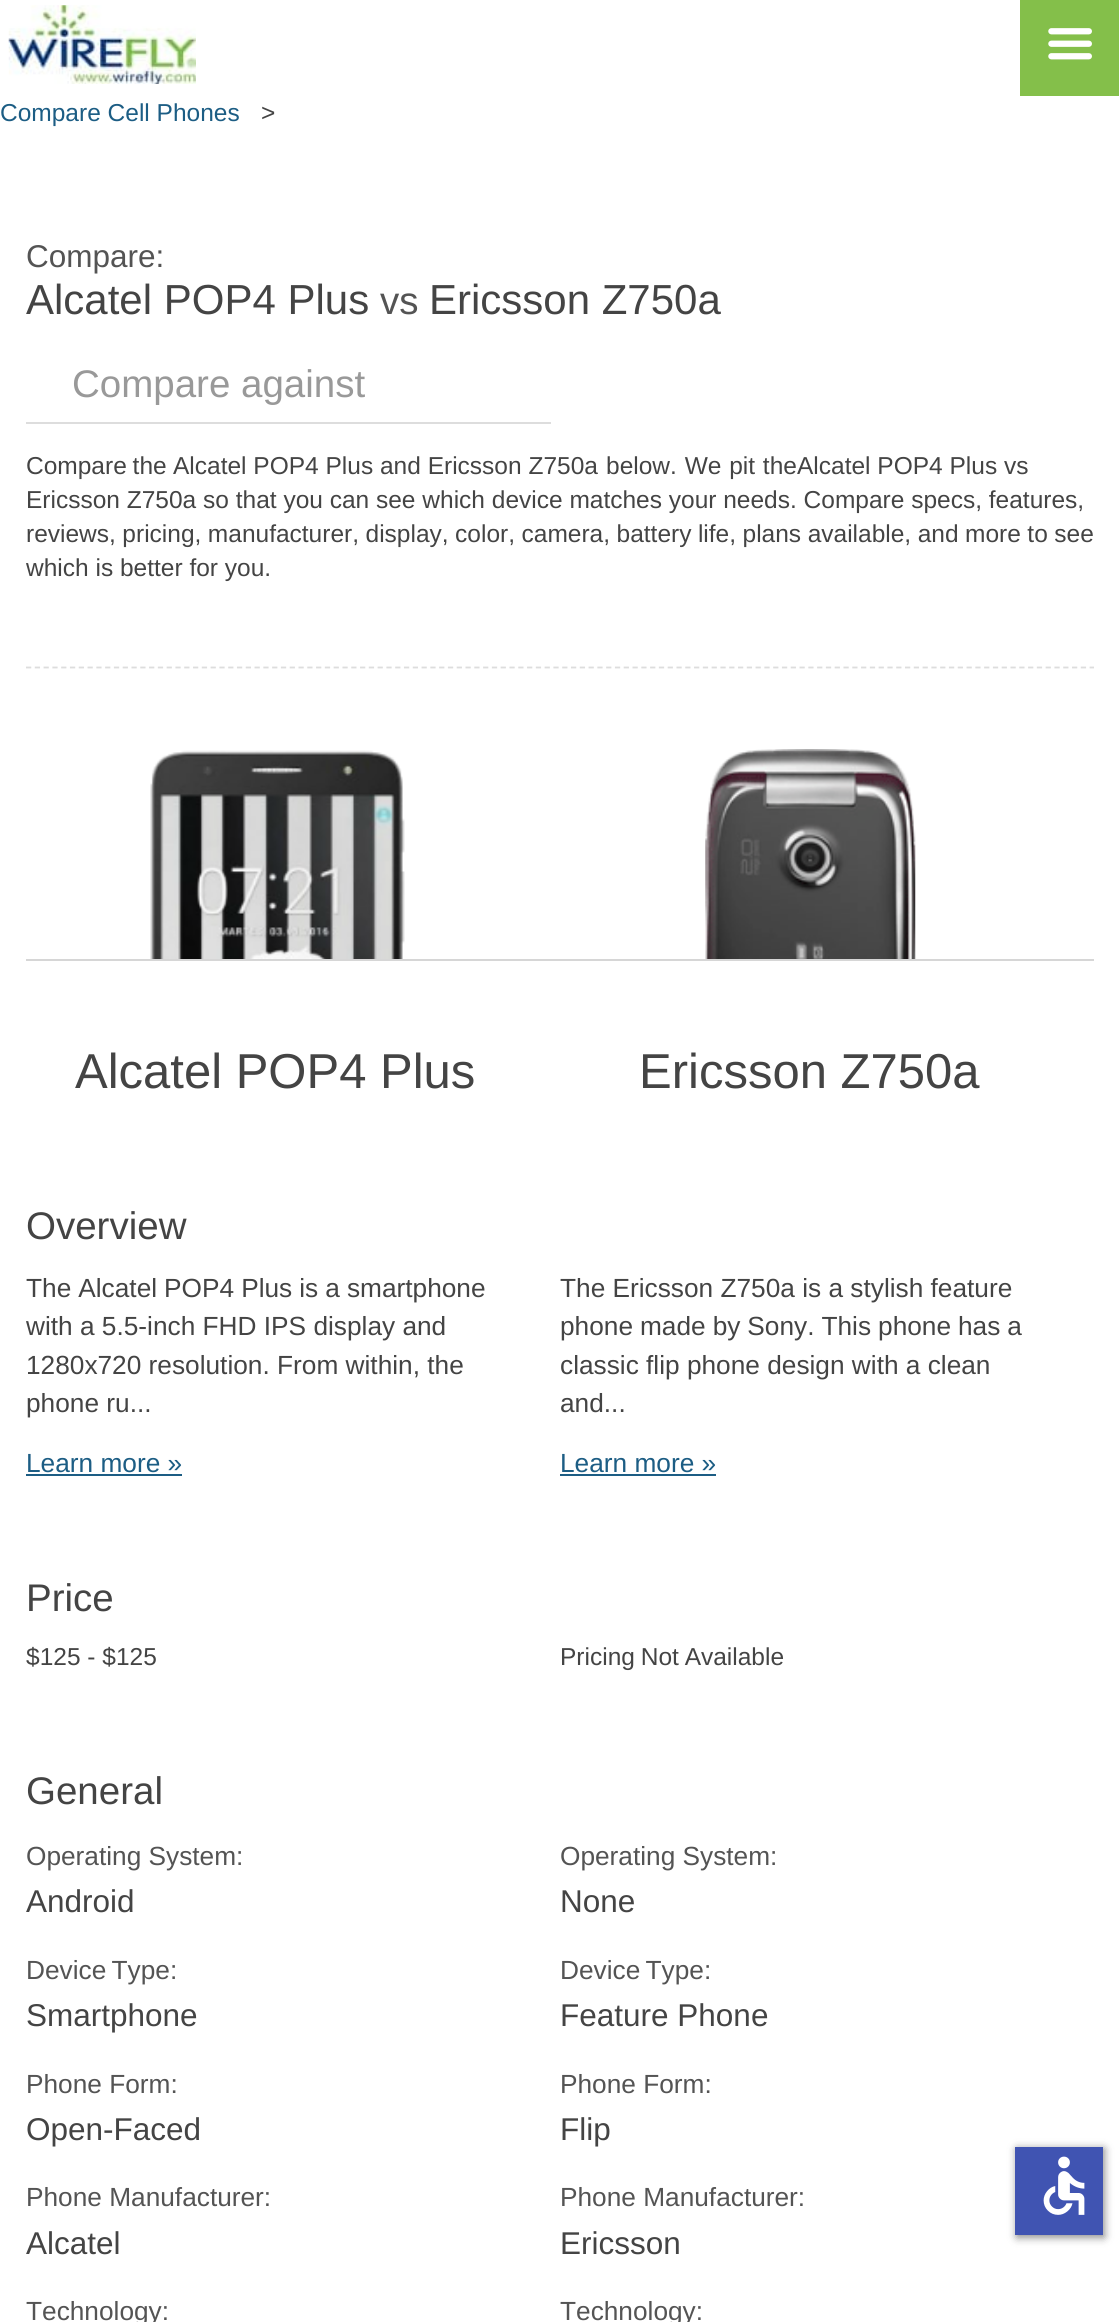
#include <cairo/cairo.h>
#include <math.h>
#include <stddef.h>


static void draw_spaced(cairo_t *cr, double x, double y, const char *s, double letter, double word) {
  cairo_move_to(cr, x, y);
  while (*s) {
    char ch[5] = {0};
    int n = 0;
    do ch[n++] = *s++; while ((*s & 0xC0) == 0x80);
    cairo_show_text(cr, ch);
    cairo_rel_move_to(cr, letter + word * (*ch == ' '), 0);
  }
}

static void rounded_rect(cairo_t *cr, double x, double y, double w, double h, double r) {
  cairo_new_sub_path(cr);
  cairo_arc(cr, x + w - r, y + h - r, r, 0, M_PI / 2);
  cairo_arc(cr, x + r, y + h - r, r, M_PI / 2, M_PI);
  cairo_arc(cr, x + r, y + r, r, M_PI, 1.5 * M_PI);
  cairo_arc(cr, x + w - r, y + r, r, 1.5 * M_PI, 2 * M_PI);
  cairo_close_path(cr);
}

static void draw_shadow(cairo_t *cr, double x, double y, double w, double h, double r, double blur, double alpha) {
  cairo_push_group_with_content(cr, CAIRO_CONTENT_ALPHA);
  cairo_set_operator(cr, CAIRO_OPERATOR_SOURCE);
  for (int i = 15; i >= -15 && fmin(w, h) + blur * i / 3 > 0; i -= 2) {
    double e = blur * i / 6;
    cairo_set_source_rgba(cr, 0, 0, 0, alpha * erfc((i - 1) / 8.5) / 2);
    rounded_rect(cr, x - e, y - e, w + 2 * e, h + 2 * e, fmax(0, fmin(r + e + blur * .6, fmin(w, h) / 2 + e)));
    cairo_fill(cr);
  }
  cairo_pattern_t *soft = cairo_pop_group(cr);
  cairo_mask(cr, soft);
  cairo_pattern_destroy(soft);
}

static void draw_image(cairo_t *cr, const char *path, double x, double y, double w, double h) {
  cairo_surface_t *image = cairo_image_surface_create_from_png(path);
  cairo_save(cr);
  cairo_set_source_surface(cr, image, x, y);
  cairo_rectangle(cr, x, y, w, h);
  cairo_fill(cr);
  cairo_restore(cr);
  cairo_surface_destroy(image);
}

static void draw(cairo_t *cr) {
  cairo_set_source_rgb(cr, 1, 1, 1);
  cairo_paint(cr);
  draw_image(cr, "images/1.png", 8, 5, 188, 79);
  cairo_set_source_rgb(cr, 132 / 255.0, 191 / 255.0, 74 / 255.0);
  cairo_rectangle(cr, 1020, 0, 99, 96);
  cairo_fill(cr);
  draw_image(cr, "images/2.png", 1048, 28, 44, 32);
  cairo_new_path(cr);
  cairo_move_to(cr, 26, 667.5);
  cairo_line_to(cr, 1094, 667.5);
  cairo_set_source_rgb(cr, 221 / 255.0, 221 / 255.0, 221 / 255.0);
  cairo_set_line_width(cr, 1.8);
  cairo_set_dash(cr, (double[]){5.25, 3.54}, 2, 0);
  cairo_stroke(cr);
  cairo_rectangle(cr, 26, 422, 525, 2);
  cairo_fill(cr);
  cairo_set_source_rgb(cr, 214 / 255.0, 214 / 255.0, 214 / 255.0);
  cairo_rectangle(cr, 26, 959, 1068, 2);
  cairo_fill(cr);
  draw_image(cr, "images/3.png", 150, 750, 255, 209);
  draw_image(cr, "images/4.png", 705, 749, 211, 210);
  cairo_set_source_rgb(cr, 28 / 255.0, 93 / 255.0, 132 / 255.0);
  cairo_rectangle(cr, 26, 1474, 156, 2);
  cairo_fill(cr);
  cairo_rectangle(cr, 560, 1474, 156, 2);
  cairo_fill(cr);
  cairo_set_source_rgb(cr, 0, 0, 0);
  draw_shadow(cr, 1017, 2149, 87, 88, 0, 4.5, 0.5);
  cairo_set_source_rgb(cr, 64 / 255.0, 84 / 255.0, 178 / 255.0);
  cairo_rectangle(cr, 1015, 2147, 88, 88);
  cairo_fill(cr);
  draw_image(cr, "images/5.png", 1043, 2156, 42, 59);
  cairo_select_font_face(cr, "Liberation Sans", CAIRO_FONT_SLANT_NORMAL, CAIRO_FONT_WEIGHT_NORMAL);
  cairo_set_font_size(cr, 24.5);
  cairo_set_source_rgb(cr, 28 / 255.0, 93 / 255.0, 132 / 255.0);
  cairo_move_to(cr, 0, 121);
  cairo_show_text(cr, "Compare Cell Phones");
  cairo_set_source_rgb(cr, 68 / 255.0, 68 / 255.0, 68 / 255.0);
  cairo_move_to(cr, 261, 121);
  cairo_show_text(cr, ">");
  cairo_set_font_size(cr, 31.5);
  cairo_set_source_rgb(cr, 84 / 255.0, 84 / 255.0, 84 / 255.0);
  cairo_move_to(cr, 26, 267);
  cairo_show_text(cr, "Compare:");
  cairo_set_font_size(cr, 42);
  cairo_set_source_rgb(cr, 68 / 255.0, 68 / 255.0, 68 / 255.0);
  cairo_move_to(cr, 26, 314);
  cairo_show_text(cr, "Alcatel POP4 Plus");
  cairo_set_font_size(cr, 38.5);
  cairo_set_source_rgb(cr, 84 / 255.0, 84 / 255.0, 84 / 255.0);
  cairo_move_to(cr, 380, 314);
  cairo_show_text(cr, "vs");
  cairo_set_font_size(cr, 42);
  cairo_set_source_rgb(cr, 68 / 255.0, 68 / 255.0, 68 / 255.0);
  cairo_move_to(cr, 429, 314);
  cairo_show_text(cr, "Ericsson Z750a");
  cairo_set_font_size(cr, 38.5);
  cairo_set_source_rgb(cr, 153 / 255.0, 153 / 255.0, 153 / 255.0);
  cairo_move_to(cr, 72, 397);
  cairo_show_text(cr, "Compare against");
  cairo_set_font_size(cr, 24.5);
  cairo_set_source_rgb(cr, 68 / 255.0, 68 / 255.0, 68 / 255.0);
  draw_spaced(cr, 26, 474, "Compare the", 0, -1);
  cairo_move_to(cr, 173, 474);
  cairo_show_text(cr, "Alcatel POP4 Plus and Ericsson Z750a");
  draw_spaced(cr, 606, 474, "below. We pit the", 0, 1);
  cairo_move_to(cr, 797, 474);
  cairo_show_text(cr, "Alcatel POP4 Plus vs");
  cairo_move_to(cr, 26, 508);
  cairo_show_text(cr, "Ericsson Z750a so that you can see which device matches your needs. Compare specs, features,");
  draw_spaced(cr, 26, 542, "reviews, pricing, manufacturer, display, color, camera, battery life, plans available, and more to see", 0, -0.3);
  cairo_move_to(cr, 26, 576);
  cairo_show_text(cr, "which is better for you.");
  cairo_set_font_size(cr, 49);
  cairo_move_to(cr, 75, 1088);
  cairo_show_text(cr, "Alcatel POP4 Plus");
  cairo_move_to(cr, 639, 1088);
  cairo_show_text(cr, "Ericsson Z750a");
  cairo_set_font_size(cr, 38.5);
  cairo_move_to(cr, 26, 1239);
  cairo_show_text(cr, "Overview");
  cairo_set_font_size(cr, 26.25);
  draw_spaced(cr, 26, 1297, "The Alcatel POP4 Plus is a smartphone", 0, -0.25);
  cairo_move_to(cr, 26, 1335);
  cairo_show_text(cr, "with a 5.5-inch FHD IPS display and");
  cairo_move_to(cr, 26, 1374);
  cairo_show_text(cr, "1280x720 resolution. From within, the");
  cairo_move_to(cr, 26, 1412);
  cairo_show_text(cr, "phone ru...");
  cairo_set_source_rgb(cr, 28 / 255.0, 93 / 255.0, 132 / 255.0);
  cairo_move_to(cr, 26, 1472);
  cairo_show_text(cr, "Learn more »");
  cairo_set_source_rgb(cr, 68 / 255.0, 68 / 255.0, 68 / 255.0);
  cairo_move_to(cr, 560, 1297);
  cairo_show_text(cr, "The Ericsson Z750a is a stylish feature");
  draw_spaced(cr, 560, 1335, "phone made by Sony. This phone has a", 0, -0.3);
  cairo_move_to(cr, 560, 1374);
  cairo_show_text(cr, "classic flip phone design with a clean");
  cairo_move_to(cr, 560, 1412);
  cairo_show_text(cr, "and...");
  cairo_set_source_rgb(cr, 28 / 255.0, 93 / 255.0, 132 / 255.0);
  cairo_move_to(cr, 560, 1472);
  cairo_show_text(cr, "Learn more »");
  cairo_set_font_size(cr, 38.5);
  cairo_set_source_rgb(cr, 68 / 255.0, 68 / 255.0, 68 / 255.0);
  cairo_move_to(cr, 26, 1611);
  cairo_show_text(cr, "Price");
  cairo_set_font_size(cr, 24.5);
  cairo_move_to(cr, 26, 1665);
  cairo_show_text(cr, "$125 - $125");
  draw_spaced(cr, 560, 1665, "Pricing Not Available", 0, -1);
  cairo_set_font_size(cr, 38.5);
  cairo_move_to(cr, 26, 1804);
  cairo_show_text(cr, "General");
  cairo_set_font_size(cr, 26.25);
  cairo_set_source_rgb(cr, 84 / 255.0, 84 / 255.0, 84 / 255.0);
  cairo_move_to(cr, 26, 1865);
  cairo_show_text(cr, "Operating System:");
  cairo_set_font_size(cr, 31.5);
  cairo_set_source_rgb(cr, 68 / 255.0, 68 / 255.0, 68 / 255.0);
  cairo_move_to(cr, 26, 1912);
  cairo_show_text(cr, "Android");
  cairo_set_font_size(cr, 26.25);
  cairo_set_source_rgb(cr, 84 / 255.0, 84 / 255.0, 84 / 255.0);
  draw_spaced(cr, 26, 1979, "Device Type:", 0, -2);
  cairo_set_font_size(cr, 31.5);
  cairo_set_source_rgb(cr, 68 / 255.0, 68 / 255.0, 68 / 255.0);
  cairo_move_to(cr, 26, 2026);
  cairo_show_text(cr, "Smartphone");
  cairo_set_font_size(cr, 26.25);
  cairo_set_source_rgb(cr, 84 / 255.0, 84 / 255.0, 84 / 255.0);
  cairo_move_to(cr, 26, 2093);
  cairo_show_text(cr, "Phone Form:");
  cairo_set_font_size(cr, 31.5);
  cairo_set_source_rgb(cr, 68 / 255.0, 68 / 255.0, 68 / 255.0);
  cairo_move_to(cr, 26, 2140);
  cairo_show_text(cr, "Open-Faced");
  cairo_set_font_size(cr, 26.25);
  cairo_set_source_rgb(cr, 84 / 255.0, 84 / 255.0, 84 / 255.0);
  cairo_move_to(cr, 26, 2206);
  cairo_show_text(cr, "Phone Manufacturer:");
  cairo_set_font_size(cr, 31.5);
  cairo_set_source_rgb(cr, 68 / 255.0, 68 / 255.0, 68 / 255.0);
  cairo_move_to(cr, 26, 2254);
  cairo_show_text(cr, "Alcatel");
  cairo_set_font_size(cr, 26.25);
  cairo_set_source_rgb(cr, 84 / 255.0, 84 / 255.0, 84 / 255.0);
  cairo_move_to(cr, 26, 2320);
  cairo_show_text(cr, "Technology:");
  cairo_move_to(cr, 560, 1865);
  cairo_show_text(cr, "Operating System:");
  cairo_set_font_size(cr, 31.5);
  cairo_set_source_rgb(cr, 68 / 255.0, 68 / 255.0, 68 / 255.0);
  cairo_move_to(cr, 560, 1912);
  cairo_show_text(cr, "None");
  cairo_set_font_size(cr, 26.25);
  cairo_set_source_rgb(cr, 84 / 255.0, 84 / 255.0, 84 / 255.0);
  draw_spaced(cr, 560, 1979, "Device Type:", 0, -2);
  cairo_set_font_size(cr, 31.5);
  cairo_set_source_rgb(cr, 68 / 255.0, 68 / 255.0, 68 / 255.0);
  cairo_move_to(cr, 560, 2026);
  cairo_show_text(cr, "Feature Phone");
  cairo_set_font_size(cr, 26.25);
  cairo_set_source_rgb(cr, 84 / 255.0, 84 / 255.0, 84 / 255.0);
  cairo_move_to(cr, 560, 2093);
  cairo_show_text(cr, "Phone Form:");
  cairo_set_font_size(cr, 31.5);
  cairo_set_source_rgb(cr, 68 / 255.0, 68 / 255.0, 68 / 255.0);
  cairo_move_to(cr, 560, 2140);
  cairo_show_text(cr, "Flip");
  cairo_set_font_size(cr, 26.25);
  cairo_set_source_rgb(cr, 84 / 255.0, 84 / 255.0, 84 / 255.0);
  cairo_move_to(cr, 560, 2206);
  cairo_show_text(cr, "Phone Manufacturer:");
  cairo_set_font_size(cr, 31.5);
  cairo_set_source_rgb(cr, 68 / 255.0, 68 / 255.0, 68 / 255.0);
  cairo_move_to(cr, 560, 2254);
  cairo_show_text(cr, "Ericsson");
  cairo_set_font_size(cr, 26.25);
  cairo_set_source_rgb(cr, 84 / 255.0, 84 / 255.0, 84 / 255.0);
  cairo_move_to(cr, 560, 2320);
  cairo_show_text(cr, "Technology:");
}

int main(void) {
  cairo_surface_t *surface = cairo_image_surface_create(CAIRO_FORMAT_RGB24, 1119, 2322);
  cairo_t *cr = cairo_create(surface);
  cairo_font_options_t *options = cairo_font_options_create();
  cairo_font_options_set_hint_metrics(options, CAIRO_HINT_METRICS_OFF);
  cairo_font_options_set_hint_style(options, CAIRO_HINT_STYLE_NONE);
  cairo_set_font_options(cr, options);
  cairo_set_miter_limit(cr, 4);
  draw(cr);
  cairo_surface_write_to_png(surface, "out.png");
  cairo_font_options_destroy(options);
  cairo_destroy(cr);
  cairo_surface_destroy(surface);
  return 0;
}
